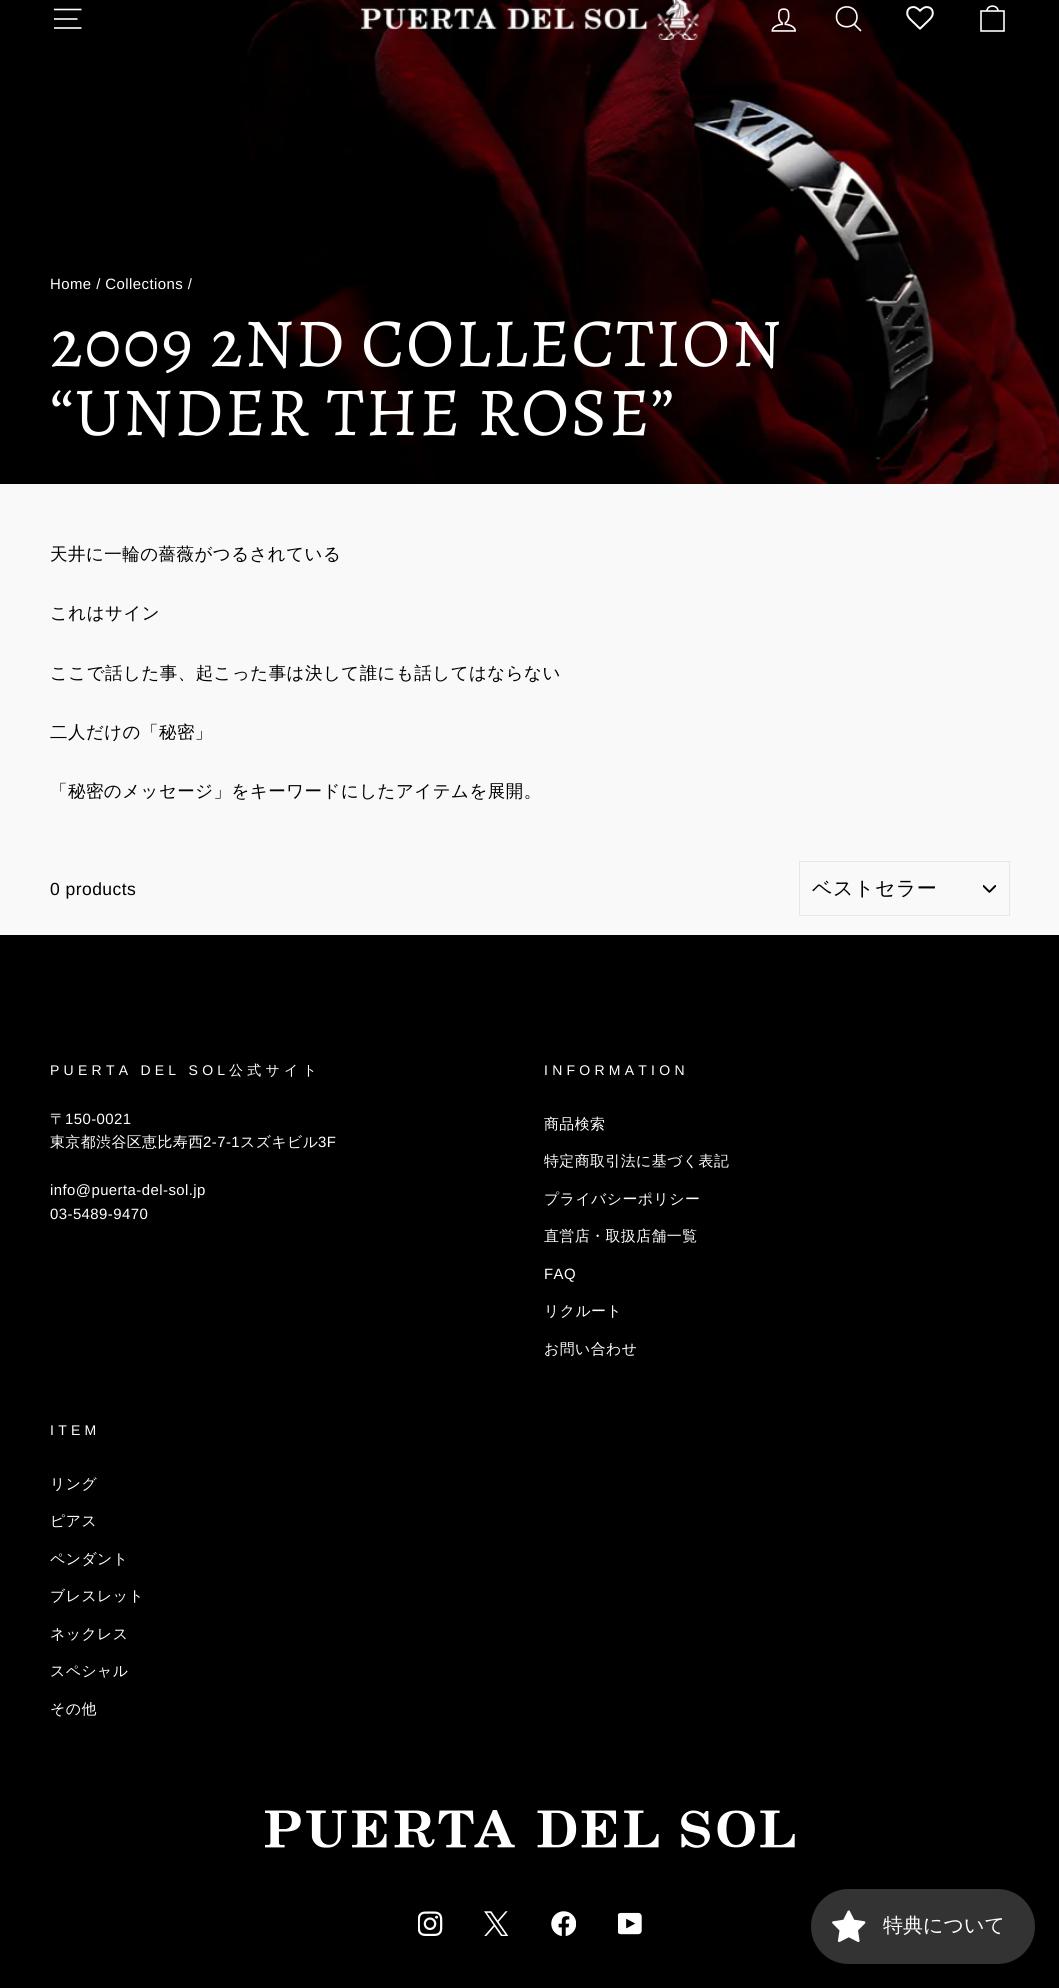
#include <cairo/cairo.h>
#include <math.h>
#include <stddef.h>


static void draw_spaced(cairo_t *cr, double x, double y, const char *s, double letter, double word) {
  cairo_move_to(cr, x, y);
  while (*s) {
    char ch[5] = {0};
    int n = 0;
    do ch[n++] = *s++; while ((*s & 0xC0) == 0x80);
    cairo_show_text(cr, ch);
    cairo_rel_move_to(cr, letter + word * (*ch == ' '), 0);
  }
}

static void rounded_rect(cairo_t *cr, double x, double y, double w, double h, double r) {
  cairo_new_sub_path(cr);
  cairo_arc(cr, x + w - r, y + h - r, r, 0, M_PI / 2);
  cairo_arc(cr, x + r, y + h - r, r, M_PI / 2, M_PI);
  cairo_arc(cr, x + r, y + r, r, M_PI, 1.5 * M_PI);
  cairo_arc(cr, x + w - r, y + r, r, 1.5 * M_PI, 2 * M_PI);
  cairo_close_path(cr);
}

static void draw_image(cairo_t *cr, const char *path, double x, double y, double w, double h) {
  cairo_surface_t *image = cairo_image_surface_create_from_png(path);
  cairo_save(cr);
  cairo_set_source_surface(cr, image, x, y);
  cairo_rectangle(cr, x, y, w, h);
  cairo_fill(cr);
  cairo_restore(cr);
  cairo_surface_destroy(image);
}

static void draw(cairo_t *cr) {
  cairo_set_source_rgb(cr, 249 / 255.0, 249 / 255.0, 249 / 255.0);
  cairo_paint(cr);
  draw_image(cr, "images/4.png", 0, 0, 1059, 484);
  cairo_new_path(cr);
  cairo_move_to(cr, 54, 9.5);
  cairo_line_to(cr, 81.5, 9.5);
  cairo_move_to(cr, 54, 19);
  cairo_line_to(cr, 77.5, 19);
  cairo_move_to(cr, 54, 28);
  cairo_line_to(cr, 81.5, 28);
  cairo_set_source_rgb(cr, 1, 1, 1);
  cairo_set_line_width(cr, 1.6);
  cairo_stroke(cr);
  draw_image(cr, "images/1.png", 361, 0, 338, 40);
  draw_image(cr, "images/2.png", 771, 8, 25, 24);
  cairo_new_path(cr);
  cairo_move_to(cr, 857, 17);
  cairo_curve_to(cr, 857, 30, 836.5, 30, 836.5, 17);
  cairo_curve_to(cr, 836.5, 3.5, 857, 3.5, 857, 17);
  cairo_close_path(cr);
  cairo_move_to(cr, 861, 31);
  cairo_line_to(cr, 854, 24);
  cairo_stroke(cr);
  draw_image(cr, "images/3.png", 906, 6, 28, 24);
  cairo_new_path(cr);
  cairo_move_to(cr, 981, 11);
  cairo_line_to(cr, 1004, 11);
  cairo_line_to(cr, 1004, 31);
  cairo_line_to(cr, 981, 31);
  cairo_close_path(cr);
  cairo_move_to(cr, 987, 11);
  cairo_curve_to(cr, 987, 4.5, 998, 4.5, 998, 11);
  cairo_stroke(cr);
  draw_image(cr, "images/5.png", 983, 885, 13, 8);
  cairo_rectangle(cr, 799.5, 861.5, 210, 54);
  cairo_set_source_rgb(cr, 232 / 255.0, 232 / 255.0, 225 / 255.0);
  cairo_set_line_width(cr, 1);
  cairo_stroke(cr);
  cairo_set_source_rgb(cr, 0, 0, 0);
  cairo_rectangle(cr, 0, 935, 1059, 1053);
  cairo_fill(cr);
  draw_image(cr, "images/6.png", 265, 1810, 530, 38);
  draw_image(cr, "images/7.png", 418, 1911, 25, 25);
  draw_image(cr, "images/8.png", 484, 1911, 25, 25);
  draw_image(cr, "images/9.png", 551, 1911, 25, 25);
  draw_image(cr, "images/10.png", 618, 1912, 24, 23);
  cairo_set_source_rgb(cr, 51 / 255.0, 51 / 255.0, 51 / 255.0);
  rounded_rect(cr, 811, 1889, 224, 75, 37.5);
  cairo_fill(cr);
  draw_image(cr, "images/11.png", 832, 1910, 34, 33);
  cairo_select_font_face(cr, "Arimo", CAIRO_FONT_SLANT_NORMAL, CAIRO_FONT_WEIGHT_NORMAL);
  cairo_set_font_size(cr, 14.9);
  cairo_set_source_rgb(cr, 1, 1, 1);
  draw_spaced(cr, 50, 289, "Home / Collections /", 0.45, 0);
  cairo_select_font_face(cr, "Alegreya", CAIRO_FONT_SLANT_NORMAL, CAIRO_FONT_WEIGHT_NORMAL);
  cairo_set_font_size(cr, 68.9);
  draw_spaced(cr, 50, 366, "2009 2ND COLLECTION", 1.75, 0);
  draw_spaced(cr, 50, 435, "“UNDER THE ROSE”", 1.75, 0);
  cairo_select_font_face(cr, "WenQuanYi Zen Hei Medium", CAIRO_FONT_SLANT_NORMAL, CAIRO_FONT_WEIGHT_NORMAL);
  cairo_set_font_size(cr, 17.5);
  cairo_set_source_rgb(cr, 0, 0, 0);
  draw_spaced(cr, 50, 560, "天井に一輪の薔薇がつるされている", 0.45, 0);
  draw_spaced(cr, 50, 619, "これはサイン", 0.45, 0);
  draw_spaced(cr, 50, 679, "ここで話した事、起こった事は決して誰にも話してはならない", 0.45, 0);
  draw_spaced(cr, 50, 738, "二人だけの「秘密」", 0.45, 0);
  draw_spaced(cr, 50, 797, "「秘密のメッセージ」をキーワードにしたアイテムを展開。", 0.45, 0);
  cairo_select_font_face(cr, "Arimo", CAIRO_FONT_SLANT_NORMAL, CAIRO_FONT_WEIGHT_NORMAL);
  draw_spaced(cr, 50, 895, "0 products", 0.45, 0);
  cairo_select_font_face(cr, "WenQuanYi Zen Hei Medium", CAIRO_FONT_SLANT_NORMAL, CAIRO_FONT_WEIGHT_NORMAL);
  cairo_set_font_size(cr, 20);
  draw_spaced(cr, 812, 895, "ベストセラー", 0.5, 0);
  cairo_select_font_face(cr, "Arimo", CAIRO_FONT_SLANT_NORMAL, CAIRO_FONT_WEIGHT_NORMAL);
  cairo_set_font_size(cr, 14);
  cairo_set_source_rgb(cr, 1, 1, 1);
  draw_spaced(cr, 50, 1075, "PUERTA DEL SOL", 4.25, 0);
  cairo_select_font_face(cr, "WenQuanYi Zen Hei Medium", CAIRO_FONT_SLANT_NORMAL, CAIRO_FONT_WEIGHT_NORMAL);
  draw_spaced(cr, 229, 1075, "公式サイト", 4.25, 0);
  cairo_set_font_size(cr, 14.9);
  draw_spaced(cr, 50, 1124, "〒", 0.45, 0);
  cairo_select_font_face(cr, "Arimo", CAIRO_FONT_SLANT_NORMAL, CAIRO_FONT_WEIGHT_NORMAL);
  draw_spaced(cr, 65, 1124, "150-0021", 0.45, 0);
  cairo_select_font_face(cr, "WenQuanYi Zen Hei Medium", CAIRO_FONT_SLANT_NORMAL, CAIRO_FONT_WEIGHT_NORMAL);
  draw_spaced(cr, 50, 1147, "東京都渋谷区恵比寿西", 0.45, 0);
  cairo_select_font_face(cr, "Arimo", CAIRO_FONT_SLANT_NORMAL, CAIRO_FONT_WEIGHT_NORMAL);
  draw_spaced(cr, 203, 1147, "2-7-1", 0.45, 0);
  cairo_select_font_face(cr, "WenQuanYi Zen Hei Medium", CAIRO_FONT_SLANT_NORMAL, CAIRO_FONT_WEIGHT_NORMAL);
  draw_spaced(cr, 240, 1147, "スズキビル", 0.45, 0);
  cairo_select_font_face(cr, "Arimo", CAIRO_FONT_SLANT_NORMAL, CAIRO_FONT_WEIGHT_NORMAL);
  draw_spaced(cr, 318, 1147, "3F", 0.45, 0);
  draw_spaced(cr, 50, 1195, "info@puerta-del-sol.jp", 0.45, 0);
  draw_spaced(cr, 50, 1219, "03-5489-9470", 0.45, 0);
  cairo_set_font_size(cr, 14);
  draw_spaced(cr, 544, 1075, "INFORMATION", 4.25, 0);
  cairo_select_font_face(cr, "WenQuanYi Zen Hei Medium", CAIRO_FONT_SLANT_NORMAL, CAIRO_FONT_WEIGHT_NORMAL);
  cairo_set_font_size(cr, 14.9);
  draw_spaced(cr, 544, 1129, "商品検索", 0.45, 0);
  draw_spaced(cr, 544, 1166, "特定商取引法に基づく表記", 0.45, 0);
  draw_spaced(cr, 544, 1204, "プライバシーポリシー", 0.45, 0);
  draw_spaced(cr, 544, 1241, "直営店・取扱店舗一覧", 0.45, 0);
  cairo_select_font_face(cr, "Arimo", CAIRO_FONT_SLANT_NORMAL, CAIRO_FONT_WEIGHT_NORMAL);
  draw_spaced(cr, 544, 1279, "FAQ", 0.45, 0);
  cairo_select_font_face(cr, "WenQuanYi Zen Hei Medium", CAIRO_FONT_SLANT_NORMAL, CAIRO_FONT_WEIGHT_NORMAL);
  draw_spaced(cr, 544, 1316, "リクルート", 0.45, 0);
  draw_spaced(cr, 544, 1354, "お問い合わせ", 0.45, 0);
  cairo_select_font_face(cr, "Arimo", CAIRO_FONT_SLANT_NORMAL, CAIRO_FONT_WEIGHT_NORMAL);
  cairo_set_font_size(cr, 14);
  draw_spaced(cr, 50, 1435, "ITEM", 4.25, 0);
  cairo_select_font_face(cr, "WenQuanYi Zen Hei Medium", CAIRO_FONT_SLANT_NORMAL, CAIRO_FONT_WEIGHT_NORMAL);
  cairo_set_font_size(cr, 14.9);
  draw_spaced(cr, 50, 1489, "リング", 0.45, 0);
  draw_spaced(cr, 50, 1526, "ピアス", 0.45, 0);
  draw_spaced(cr, 50, 1564, "ペンダント", 0.45, 0);
  draw_spaced(cr, 50, 1601, "ブレスレット", 0.45, 0);
  draw_spaced(cr, 50, 1639, "ネックレス", 0.45, 0);
  draw_spaced(cr, 50, 1676, "スペシャル", 0.45, 0);
  draw_spaced(cr, 50, 1714, "その他", 0.45, 0);
  cairo_set_font_size(cr, 20);
  cairo_move_to(cr, 883, 1932);
  cairo_show_text(cr, "特典について");
}

int main(void) {
  cairo_surface_t *surface = cairo_image_surface_create(CAIRO_FORMAT_RGB24, 1059, 1988);
  cairo_t *cr = cairo_create(surface);
  cairo_font_options_t *options = cairo_font_options_create();
  cairo_font_options_set_hint_metrics(options, CAIRO_HINT_METRICS_OFF);
  cairo_font_options_set_hint_style(options, CAIRO_HINT_STYLE_NONE);
  cairo_set_font_options(cr, options);
  cairo_set_miter_limit(cr, 4);
  draw(cr);
  cairo_surface_write_to_png(surface, "out.png");
  cairo_font_options_destroy(options);
  cairo_destroy(cr);
  cairo_surface_destroy(surface);
  return 0;
}
